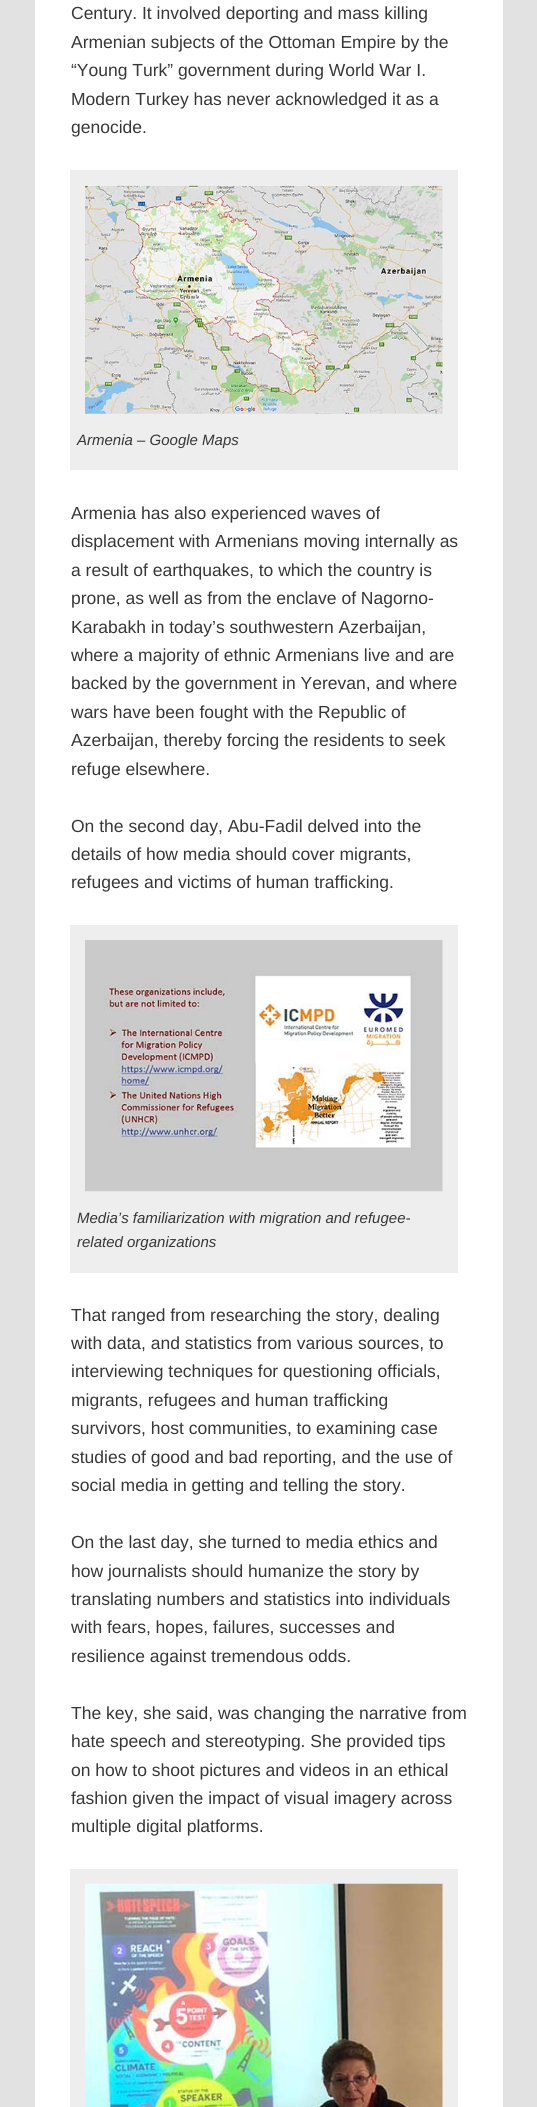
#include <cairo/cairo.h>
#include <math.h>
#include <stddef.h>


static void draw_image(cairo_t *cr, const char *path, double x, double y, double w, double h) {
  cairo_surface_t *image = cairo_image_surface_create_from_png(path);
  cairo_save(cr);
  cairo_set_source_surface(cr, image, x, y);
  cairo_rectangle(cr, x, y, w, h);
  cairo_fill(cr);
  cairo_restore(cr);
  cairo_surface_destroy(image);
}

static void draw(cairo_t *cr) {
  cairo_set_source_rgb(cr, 226 / 255.0, 226 / 255.0, 226 / 255.0);
  cairo_paint(cr);
  cairo_set_source_rgb(cr, 1, 1, 1);
  cairo_rectangle(cr, 35, 0, 468, 2107);
  cairo_fill(cr);
  cairo_set_source_rgb(cr, 238 / 255.0, 238 / 255.0, 238 / 255.0);
  cairo_rectangle(cr, 70, 170, 388, 300);
  cairo_fill(cr);
  draw_image(cr, "images/1.png", 85, 185, 358, 229);
  cairo_rectangle(cr, 70, 925, 388, 348);
  cairo_fill(cr);
  draw_image(cr, "images/2.png", 85, 940, 358, 252);
  cairo_rectangle(cr, 70, 1869, 388, 238);
  cairo_fill(cr);
  draw_image(cr, "images/3.png", 85, 1883, 358, 224);
  cairo_select_font_face(cr, "Liberation Sans", CAIRO_FONT_SLANT_NORMAL, CAIRO_FONT_WEIGHT_NORMAL);
  cairo_set_font_size(cr, 17.5);
  cairo_set_source_rgb(cr, 55 / 255.0, 55 / 255.0, 55 / 255.0);
  cairo_move_to(cr, 71, 19);
  cairo_show_text(cr, "Century. It involved deporting and mass killing");
  cairo_move_to(cr, 71, 48);
  cairo_show_text(cr, "Armenian subjects of the Ottoman Empire by the");
  cairo_move_to(cr, 71, 76);
  cairo_show_text(cr, "“Young Turk” government during World War I.");
  cairo_move_to(cr, 71, 105);
  cairo_show_text(cr, "Modern Turkey has never acknowledged it as a");
  cairo_move_to(cr, 71, 133);
  cairo_show_text(cr, "genocide.");
  cairo_select_font_face(cr, "Liberation Sans", CAIRO_FONT_SLANT_ITALIC, CAIRO_FONT_WEIGHT_NORMAL);
  cairo_set_font_size(cr, 15);
  cairo_move_to(cr, 77, 445);
  cairo_show_text(cr, "Armenia – Google Maps");
  cairo_select_font_face(cr, "Liberation Sans", CAIRO_FONT_SLANT_NORMAL, CAIRO_FONT_WEIGHT_NORMAL);
  cairo_set_font_size(cr, 17.5);
  cairo_move_to(cr, 71, 519);
  cairo_show_text(cr, "Armenia has also experienced waves of");
  cairo_move_to(cr, 71, 547);
  cairo_show_text(cr, "displacement with Armenians moving internally as");
  cairo_move_to(cr, 71, 576);
  cairo_show_text(cr, "a result of earthquakes, to which the country is");
  cairo_move_to(cr, 71, 604);
  cairo_show_text(cr, "prone, as well as from the enclave of Nagorno-");
  cairo_move_to(cr, 71, 633);
  cairo_show_text(cr, "Karabakh in today’s southwestern Azerbaijan,");
  cairo_move_to(cr, 71, 661);
  cairo_show_text(cr, "where a majority of ethnic Armenians live and are");
  cairo_move_to(cr, 71, 689);
  cairo_show_text(cr, "backed by the government in Yerevan, and where");
  cairo_move_to(cr, 71, 718);
  cairo_show_text(cr, "wars have been fought with the Republic of");
  cairo_move_to(cr, 71, 746);
  cairo_show_text(cr, "Azerbaijan, thereby forcing the residents to seek");
  cairo_move_to(cr, 71, 775);
  cairo_show_text(cr, "refuge elsewhere.");
  cairo_move_to(cr, 71, 832);
  cairo_show_text(cr, "On the second day, Abu-Fadil delved into the");
  cairo_move_to(cr, 71, 860);
  cairo_show_text(cr, "details of how media should cover migrants,");
  cairo_move_to(cr, 71, 888);
  cairo_show_text(cr, "refugees and victims of human trafficking.");
  cairo_select_font_face(cr, "Liberation Sans", CAIRO_FONT_SLANT_ITALIC, CAIRO_FONT_WEIGHT_NORMAL);
  cairo_set_font_size(cr, 15);
  cairo_move_to(cr, 77, 1223);
  cairo_show_text(cr, "Media’s familiarization with migration and refugee-");
  cairo_move_to(cr, 77, 1247);
  cairo_show_text(cr, "related organizations");
  cairo_select_font_face(cr, "Liberation Sans", CAIRO_FONT_SLANT_NORMAL, CAIRO_FONT_WEIGHT_NORMAL);
  cairo_set_font_size(cr, 17.5);
  cairo_move_to(cr, 71, 1321);
  cairo_show_text(cr, "That ranged from researching the story, dealing");
  cairo_move_to(cr, 71, 1349);
  cairo_show_text(cr, "with data, and statistics from various sources, to");
  cairo_move_to(cr, 71, 1377);
  cairo_show_text(cr, "interviewing techniques for questioning officials,");
  cairo_move_to(cr, 71, 1406);
  cairo_show_text(cr, "migrants, refugees and human trafficking");
  cairo_move_to(cr, 71, 1434);
  cairo_show_text(cr, "survivors, host communities, to examining case");
  cairo_move_to(cr, 71, 1463);
  cairo_show_text(cr, "studies of good and bad reporting, and the use of");
  cairo_move_to(cr, 71, 1491);
  cairo_show_text(cr, "social media in getting and telling the story.");
  cairo_move_to(cr, 71, 1548);
  cairo_show_text(cr, "On the last day, she turned to media ethics and");
  cairo_move_to(cr, 71, 1577);
  cairo_show_text(cr, "how journalists should humanize the story by");
  cairo_move_to(cr, 71, 1605);
  cairo_show_text(cr, "translating numbers and statistics into individuals");
  cairo_move_to(cr, 71, 1633);
  cairo_show_text(cr, "with fears, hopes, failures, successes and");
  cairo_move_to(cr, 71, 1662);
  cairo_show_text(cr, "resilience against tremendous odds.");
  cairo_move_to(cr, 71, 1719);
  cairo_show_text(cr, "The key, she said, was changing the narrative from");
  cairo_move_to(cr, 71, 1747);
  cairo_show_text(cr, "hate speech and stereotyping. She provided tips");
  cairo_move_to(cr, 71, 1776);
  cairo_show_text(cr, "on how to shoot pictures and videos in an ethical");
  cairo_move_to(cr, 71, 1804);
  cairo_show_text(cr, "fashion given the impact of visual imagery across");
  cairo_move_to(cr, 71, 1832);
  cairo_show_text(cr, "multiple digital platforms.");
}

int main(void) {
  cairo_surface_t *surface = cairo_image_surface_create(CAIRO_FORMAT_RGB24, 537, 2107);
  cairo_t *cr = cairo_create(surface);
  cairo_font_options_t *options = cairo_font_options_create();
  cairo_font_options_set_hint_metrics(options, CAIRO_HINT_METRICS_OFF);
  cairo_font_options_set_hint_style(options, CAIRO_HINT_STYLE_NONE);
  cairo_set_font_options(cr, options);
  cairo_set_miter_limit(cr, 4);
  draw(cr);
  cairo_surface_write_to_png(surface, "out.png");
  cairo_font_options_destroy(options);
  cairo_destroy(cr);
  cairo_surface_destroy(surface);
  return 0;
}
